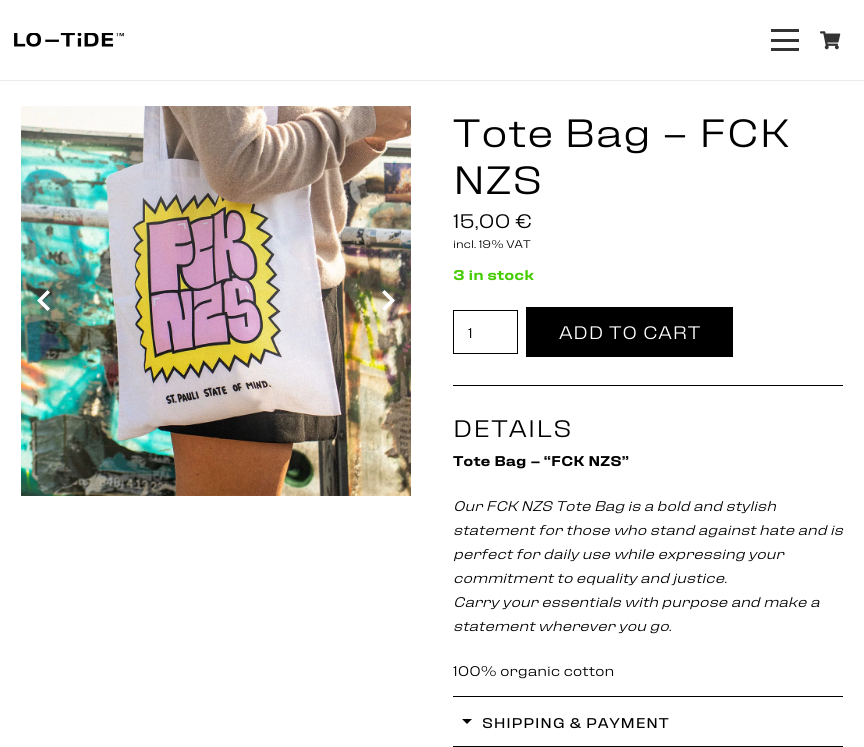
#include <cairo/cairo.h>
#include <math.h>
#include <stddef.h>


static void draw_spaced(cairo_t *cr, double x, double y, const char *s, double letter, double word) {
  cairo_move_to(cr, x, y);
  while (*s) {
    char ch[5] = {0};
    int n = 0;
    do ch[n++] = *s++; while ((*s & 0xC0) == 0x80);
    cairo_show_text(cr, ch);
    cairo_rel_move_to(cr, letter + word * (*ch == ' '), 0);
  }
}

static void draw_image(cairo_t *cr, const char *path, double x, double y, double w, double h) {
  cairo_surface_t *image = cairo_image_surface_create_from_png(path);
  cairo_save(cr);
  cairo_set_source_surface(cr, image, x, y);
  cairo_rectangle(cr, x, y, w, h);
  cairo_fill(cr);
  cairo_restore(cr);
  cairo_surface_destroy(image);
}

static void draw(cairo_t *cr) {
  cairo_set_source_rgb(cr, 1, 1, 1);
  cairo_paint(cr);
  cairo_set_source_rgb(cr, 235 / 255.0, 235 / 255.0, 235 / 255.0);
  cairo_rectangle(cr, 0, 80, 864, 1);
  cairo_fill(cr);
  draw_image(cr, "images/1.png", 14, 33, 110, 14);
  cairo_set_source_rgb(cr, 51 / 255.0, 51 / 255.0, 51 / 255.0);
  cairo_rectangle(cr, 771, 39, 28, 3);
  cairo_fill(cr);
  cairo_rectangle(cr, 771, 29, 28, 3);
  cairo_fill(cr);
  cairo_rectangle(cr, 771, 48, 28, 3);
  cairo_fill(cr);
  draw_image(cr, "images/2.png", 820, 31, 21, 19);
  draw_image(cr, "images/3.png", 21, 106, 390, 390);
  cairo_set_source_rgb(cr, 1, 1, 1);
  cairo_new_path(cr);
  cairo_move_to(cr, 50, 308.5);
  cairo_line_to(cr, 47.5, 311);
  cairo_line_to(cr, 37, 300.5);
  cairo_line_to(cr, 47.5, 290);
  cairo_line_to(cr, 50, 292.5);
  cairo_line_to(cr, 42, 300.5);
  cairo_close_path(cr);
  cairo_fill(cr);
  cairo_new_path(cr);
  cairo_move_to(cr, 382, 308.5);
  cairo_line_to(cr, 390, 300.5);
  cairo_line_to(cr, 382, 292.5);
  cairo_line_to(cr, 384.5, 290);
  cairo_line_to(cr, 395, 300.5);
  cairo_line_to(cr, 384.5, 311);
  cairo_close_path(cr);
  cairo_fill(cr);
  cairo_rectangle(cr, 453.5, 310.5, 64, 43);
  cairo_set_source_rgb(cr, 0, 0, 0);
  cairo_set_line_width(cr, 1);
  cairo_stroke(cr);
  cairo_rectangle(cr, 526, 307, 207, 50);
  cairo_fill(cr);
  cairo_rectangle(cr, 453, 385, 390, 1);
  cairo_fill(cr);
  cairo_rectangle(cr, 453, 696, 390, 1);
  cairo_fill(cr);
  cairo_rectangle(cr, 453, 746, 390, 1);
  cairo_fill(cr);
  cairo_new_path(cr);
  cairo_move_to(cr, 462, 719);
  cairo_line_to(cr, 472, 719);
  cairo_line_to(cr, 467, 724);
  cairo_close_path(cr);
  cairo_fill(cr);
  cairo_select_font_face(cr, "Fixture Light", CAIRO_FONT_SLANT_NORMAL, CAIRO_FONT_WEIGHT_NORMAL);
  cairo_set_font_size(cr, 39.25);
  draw_spaced(cr, 453, 147, "Tote Bag – FCK", 0.75, 0);
  draw_spaced(cr, 453, 194, "NZS", 0.75, 0);
  cairo_set_font_size(cr, 19.5);
  cairo_move_to(cr, 453, 228);
  cairo_show_text(cr, "15,00 €");
  cairo_set_font_size(cr, 11);
  cairo_move_to(cr, 453, 248);
  cairo_show_text(cr, "incl. 19% VAT");
  cairo_select_font_face(cr, "Fixture SemiBold", CAIRO_FONT_SLANT_NORMAL, CAIRO_FONT_WEIGHT_NORMAL);
  cairo_set_font_size(cr, 14);
  cairo_set_source_rgb(cr, 68 / 255.0, 204 / 255.0, 0);
  cairo_move_to(cr, 453, 280);
  cairo_show_text(cr, "3 in stock");
  cairo_select_font_face(cr, "Fixture Light", CAIRO_FONT_SLANT_NORMAL, CAIRO_FONT_WEIGHT_NORMAL);
  cairo_set_source_rgb(cr, 0, 0, 0);
  cairo_move_to(cr, 468, 338);
  cairo_show_text(cr, "1");
  cairo_set_font_size(cr, 18);
  cairo_set_source_rgb(cr, 1, 1, 1);
  draw_spaced(cr, 559, 339, "ADD TO CART", 0.75, 0);
  cairo_set_font_size(cr, 23.75);
  cairo_set_source_rgb(cr, 0, 0, 0);
  draw_spaced(cr, 453, 437, "DETAILS", 1.25, 0);
  cairo_select_font_face(cr, "Fixture SemiBold", CAIRO_FONT_SLANT_NORMAL, CAIRO_FONT_WEIGHT_NORMAL);
  cairo_set_font_size(cr, 14);
  cairo_move_to(cr, 453, 466);
  cairo_show_text(cr, "Tote Bag – “FCK NZS”");
  cairo_select_font_face(cr, "Fixture Light", CAIRO_FONT_SLANT_ITALIC, CAIRO_FONT_WEIGHT_NORMAL);
  cairo_move_to(cr, 453, 511);
  cairo_show_text(cr, "Our FCK NZS Tote Bag is a bold and stylish");
  cairo_move_to(cr, 453, 535);
  cairo_show_text(cr, "statement for those who stand against hate and is");
  cairo_move_to(cr, 453, 559);
  cairo_show_text(cr, "perfect for daily use while expressing your");
  cairo_move_to(cr, 453, 583);
  cairo_show_text(cr, "commitment to equality and justice.");
  cairo_move_to(cr, 453, 607);
  cairo_show_text(cr, "Carry your essentials with purpose and make a");
  cairo_move_to(cr, 453, 631);
  cairo_show_text(cr, "statement wherever you go.");
  cairo_select_font_face(cr, "Fixture Light", CAIRO_FONT_SLANT_NORMAL, CAIRO_FONT_WEIGHT_NORMAL);
  cairo_move_to(cr, 453, 676);
  cairo_show_text(cr, "100% organic cotton");
  cairo_select_font_face(cr, "Fixture", CAIRO_FONT_SLANT_NORMAL, CAIRO_FONT_WEIGHT_NORMAL);
  draw_spaced(cr, 482, 728, "SHIPPING & PAYMENT", 0.75, 0);
}

int main(void) {
  cairo_surface_t *surface = cairo_image_surface_create(CAIRO_FORMAT_RGB24, 864, 747);
  cairo_t *cr = cairo_create(surface);
  cairo_font_options_t *options = cairo_font_options_create();
  cairo_font_options_set_hint_metrics(options, CAIRO_HINT_METRICS_OFF);
  cairo_font_options_set_hint_style(options, CAIRO_HINT_STYLE_NONE);
  cairo_set_font_options(cr, options);
  cairo_set_miter_limit(cr, 4);
  draw(cr);
  cairo_surface_write_to_png(surface, "out.png");
  cairo_font_options_destroy(options);
  cairo_destroy(cr);
  cairo_surface_destroy(surface);
  return 0;
}
